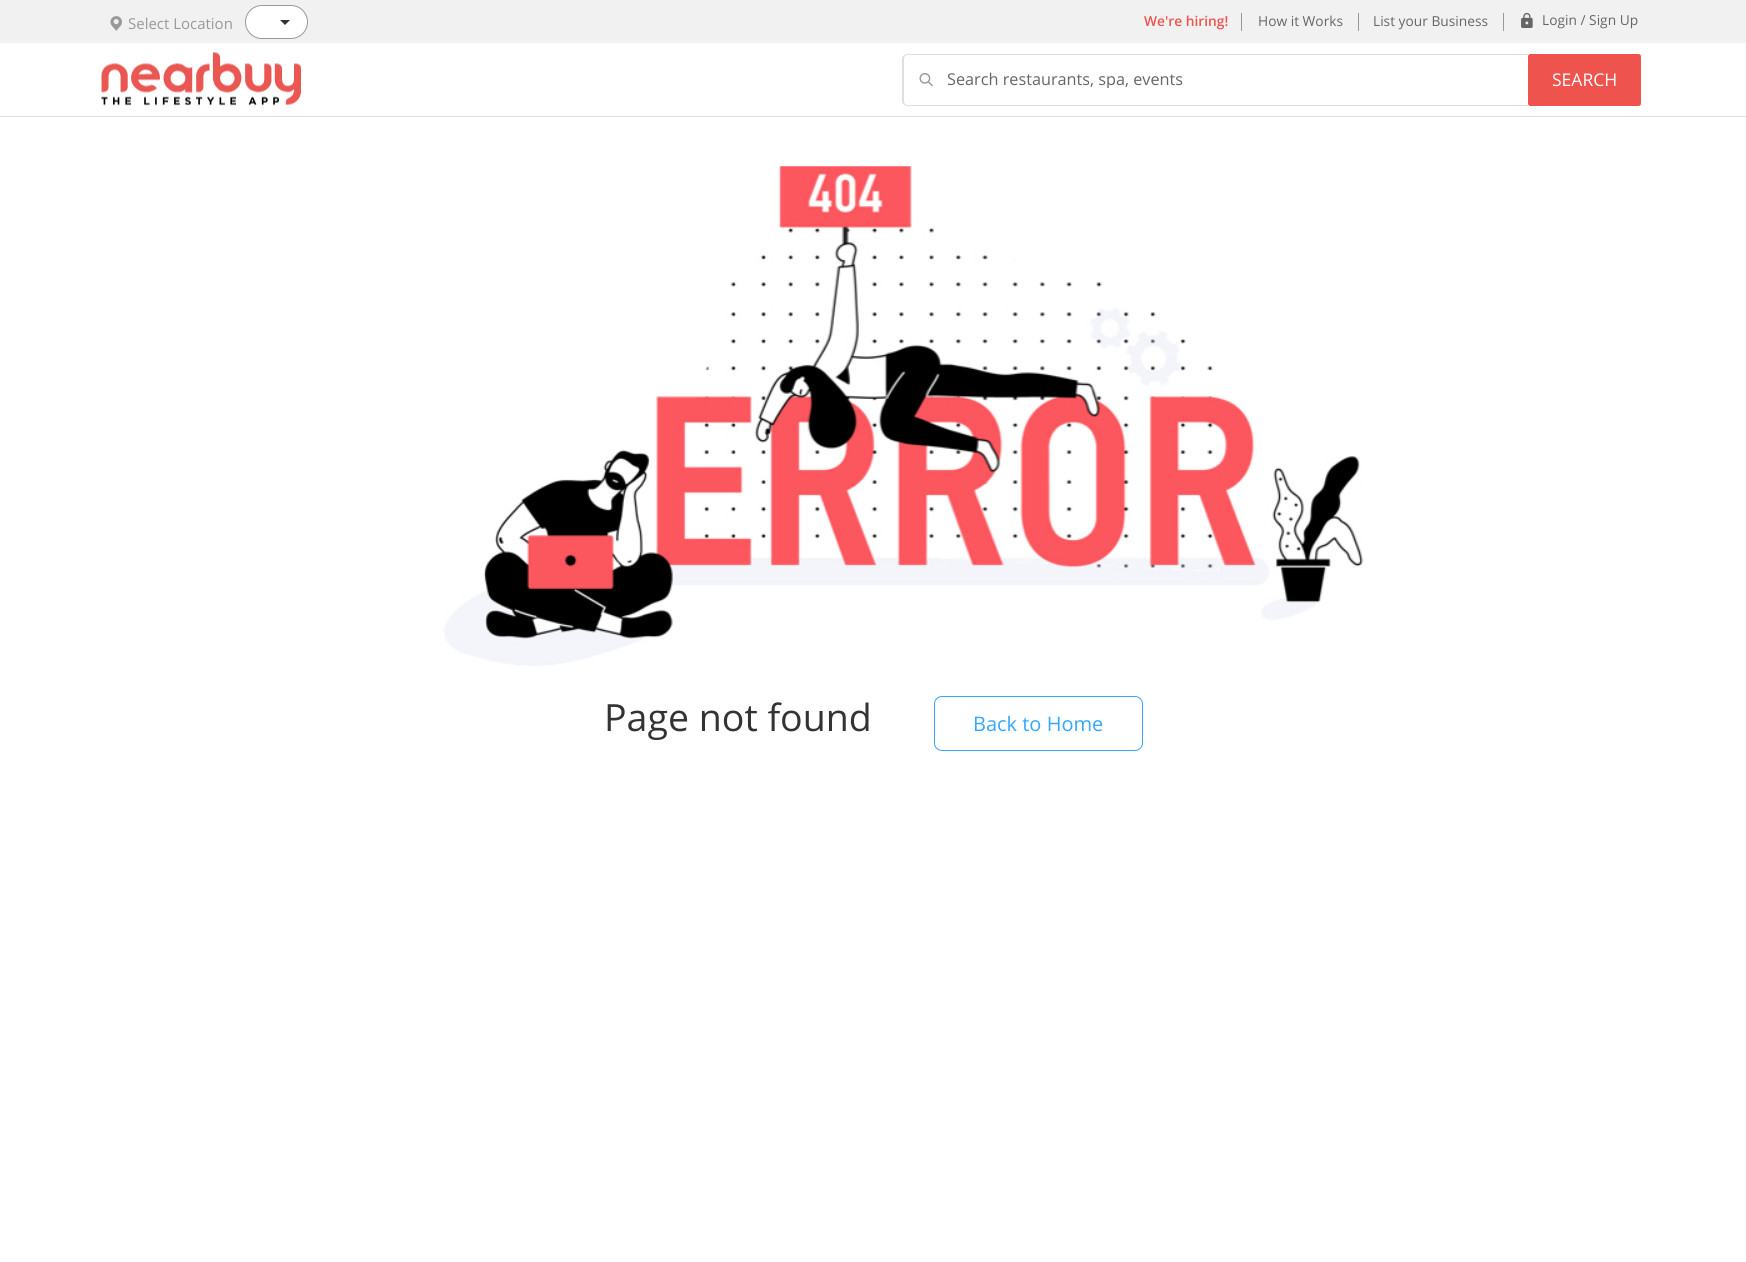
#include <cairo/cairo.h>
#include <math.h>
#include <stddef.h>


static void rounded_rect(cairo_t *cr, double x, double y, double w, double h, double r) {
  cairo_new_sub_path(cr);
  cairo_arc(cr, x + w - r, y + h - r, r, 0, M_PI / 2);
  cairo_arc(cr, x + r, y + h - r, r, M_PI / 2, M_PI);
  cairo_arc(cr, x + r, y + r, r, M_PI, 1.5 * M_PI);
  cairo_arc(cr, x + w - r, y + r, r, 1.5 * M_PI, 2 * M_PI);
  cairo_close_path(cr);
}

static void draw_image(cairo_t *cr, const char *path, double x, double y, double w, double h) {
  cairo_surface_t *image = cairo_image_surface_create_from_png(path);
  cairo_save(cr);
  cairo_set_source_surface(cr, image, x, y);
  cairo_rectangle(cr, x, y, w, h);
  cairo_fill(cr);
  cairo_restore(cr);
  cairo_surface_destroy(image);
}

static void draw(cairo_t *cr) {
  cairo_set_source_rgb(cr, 1, 1, 1);
  cairo_paint(cr);
  cairo_set_source_rgb(cr, 241 / 255.0, 241 / 255.0, 241 / 255.0);
  cairo_rectangle(cr, 0, 0, 1746, 43);
  cairo_fill(cr);
  draw_image(cr, "images/1.png", 110, 16, 12, 15);
  cairo_set_source_rgb(cr, 1, 1, 1);
  rounded_rect(cr, 245.5, 5.5, 62, 33, 16.5);
  cairo_fill_preserve(cr);
  cairo_set_source_rgb(cr, 153 / 255.0, 153 / 255.0, 153 / 255.0);
  cairo_set_line_width(cr, 1);
  cairo_stroke(cr);
  cairo_set_source_rgb(cr, 51 / 255.0, 51 / 255.0, 51 / 255.0);
  cairo_new_path(cr);
  cairo_move_to(cr, 280, 20);
  cairo_line_to(cr, 290, 20);
  cairo_line_to(cr, 285, 25);
  cairo_close_path(cr);
  cairo_fill(cr);
  cairo_set_source_rgb(cr, 153 / 255.0, 153 / 255.0, 153 / 255.0);
  cairo_rectangle(cr, 1241, 13, 1, 18);
  cairo_fill(cr);
  cairo_rectangle(cr, 1358, 13, 1, 18);
  cairo_fill(cr);
  cairo_rectangle(cr, 1503, 13, 1, 18);
  cairo_fill(cr);
  draw_image(cr, "images/2.png", 1521, 12, 12, 16);
  cairo_set_source_rgb(cr, 224 / 255.0, 224 / 255.0, 224 / 255.0);
  cairo_rectangle(cr, 0, 116, 1746, 1);
  cairo_fill(cr);
  draw_image(cr, "images/3.png", 101, 52, 200, 54);
  cairo_set_fill_rule(cr, CAIRO_FILL_RULE_EVEN_ODD);
  cairo_new_path(cr);
  cairo_move_to(cr, 908, 54);
  cairo_line_to(cr, 1528, 54);
  cairo_line_to(cr, 1528, 106);
  cairo_line_to(cr, 908, 106);
  cairo_curve_to(cr, 905, 106, 902, 104, 902, 101);
  cairo_line_to(cr, 902, 59);
  cairo_curve_to(cr, 902, 56, 905, 54, 908, 54);
  cairo_close_path(cr);
  cairo_move_to(cr, 908, 55);
  cairo_line_to(cr, 1528, 55);
  cairo_line_to(cr, 1528, 105);
  cairo_line_to(cr, 908, 105);
  cairo_curve_to(cr, 905, 105, 904, 103, 904, 101);
  cairo_line_to(cr, 904, 59);
  cairo_curve_to(cr, 904, 57, 905, 55, 908, 55);
  cairo_close_path(cr);
  cairo_fill(cr);
  draw_image(cr, "images/4.png", 919, 73, 14, 14);
  cairo_set_source_rgb(cr, 239 / 255.0, 83 / 255.0, 78 / 255.0);
  rounded_rect(cr, 1528, 54, 113, 52, 2.5);
  cairo_fill(cr);
  draw_image(cr, "images/5.png", 444, 166, 920, 500);
  rounded_rect(cr, 934.5, 696.5, 208, 54, 7.5);
  cairo_set_source_rgb(cr, 53 / 255.0, 167 / 255.0, 1);
  cairo_stroke(cr);
  cairo_select_font_face(cr, "Open Sans", CAIRO_FONT_SLANT_NORMAL, CAIRO_FONT_WEIGHT_NORMAL);
  cairo_set_font_size(cr, 15);
  cairo_set_source_rgb(cr, 153 / 255.0, 153 / 255.0, 153 / 255.0);
  cairo_move_to(cr, 128, 29);
  cairo_show_text(cr, "Select Location");
  cairo_select_font_face(cr, "Open Sans SemiBold", CAIRO_FONT_SLANT_NORMAL, CAIRO_FONT_WEIGHT_NORMAL);
  cairo_set_font_size(cr, 13.75);
  cairo_set_source_rgb(cr, 239 / 255.0, 83 / 255.0, 78 / 255.0);
  cairo_move_to(cr, 1144, 26);
  cairo_show_text(cr, "We're hiring!");
  cairo_select_font_face(cr, "Open Sans", CAIRO_FONT_SLANT_NORMAL, CAIRO_FONT_WEIGHT_NORMAL);
  cairo_set_source_rgb(cr, 102 / 255.0, 102 / 255.0, 102 / 255.0);
  cairo_move_to(cr, 1258, 26);
  cairo_show_text(cr, "How it Works");
  cairo_move_to(cr, 1373, 26);
  cairo_show_text(cr, "List your Business");
  cairo_move_to(cr, 1542, 25);
  cairo_show_text(cr, "Login / Sign Up");
  cairo_save(cr);
  cairo_set_fill_rule(cr, CAIRO_FILL_RULE_WINDING);
  cairo_rectangle(cr, 948, 71, 235, 17);
  cairo_clip(cr);
  cairo_set_font_size(cr, 16.25);
  cairo_move_to(cr, 947, 85);
  cairo_show_text(cr, "Search restaurants, spa, events");
  cairo_restore(cr);
  cairo_set_font_size(cr, 17.5);
  cairo_set_source_rgb(cr, 1, 1, 1);
  cairo_move_to(cr, 1552, 86);
  cairo_show_text(cr, "SEARCH");
  cairo_set_font_size(cr, 37.5);
  cairo_set_source_rgb(cr, 51 / 255.0, 51 / 255.0, 51 / 255.0);
  cairo_move_to(cr, 604, 731);
  cairo_show_text(cr, "Page not found");
  cairo_set_font_size(cr, 20);
  cairo_set_source_rgb(cr, 53 / 255.0, 167 / 255.0, 1);
  cairo_move_to(cr, 973, 731);
  cairo_show_text(cr, "Back to Home");
}

int main(void) {
  cairo_surface_t *surface = cairo_image_surface_create(CAIRO_FORMAT_RGB24, 1746, 1262);
  cairo_t *cr = cairo_create(surface);
  cairo_font_options_t *options = cairo_font_options_create();
  cairo_font_options_set_hint_metrics(options, CAIRO_HINT_METRICS_OFF);
  cairo_font_options_set_hint_style(options, CAIRO_HINT_STYLE_NONE);
  cairo_set_font_options(cr, options);
  cairo_set_miter_limit(cr, 4);
  draw(cr);
  cairo_surface_write_to_png(surface, "out.png");
  cairo_font_options_destroy(options);
  cairo_destroy(cr);
  cairo_surface_destroy(surface);
  return 0;
}
